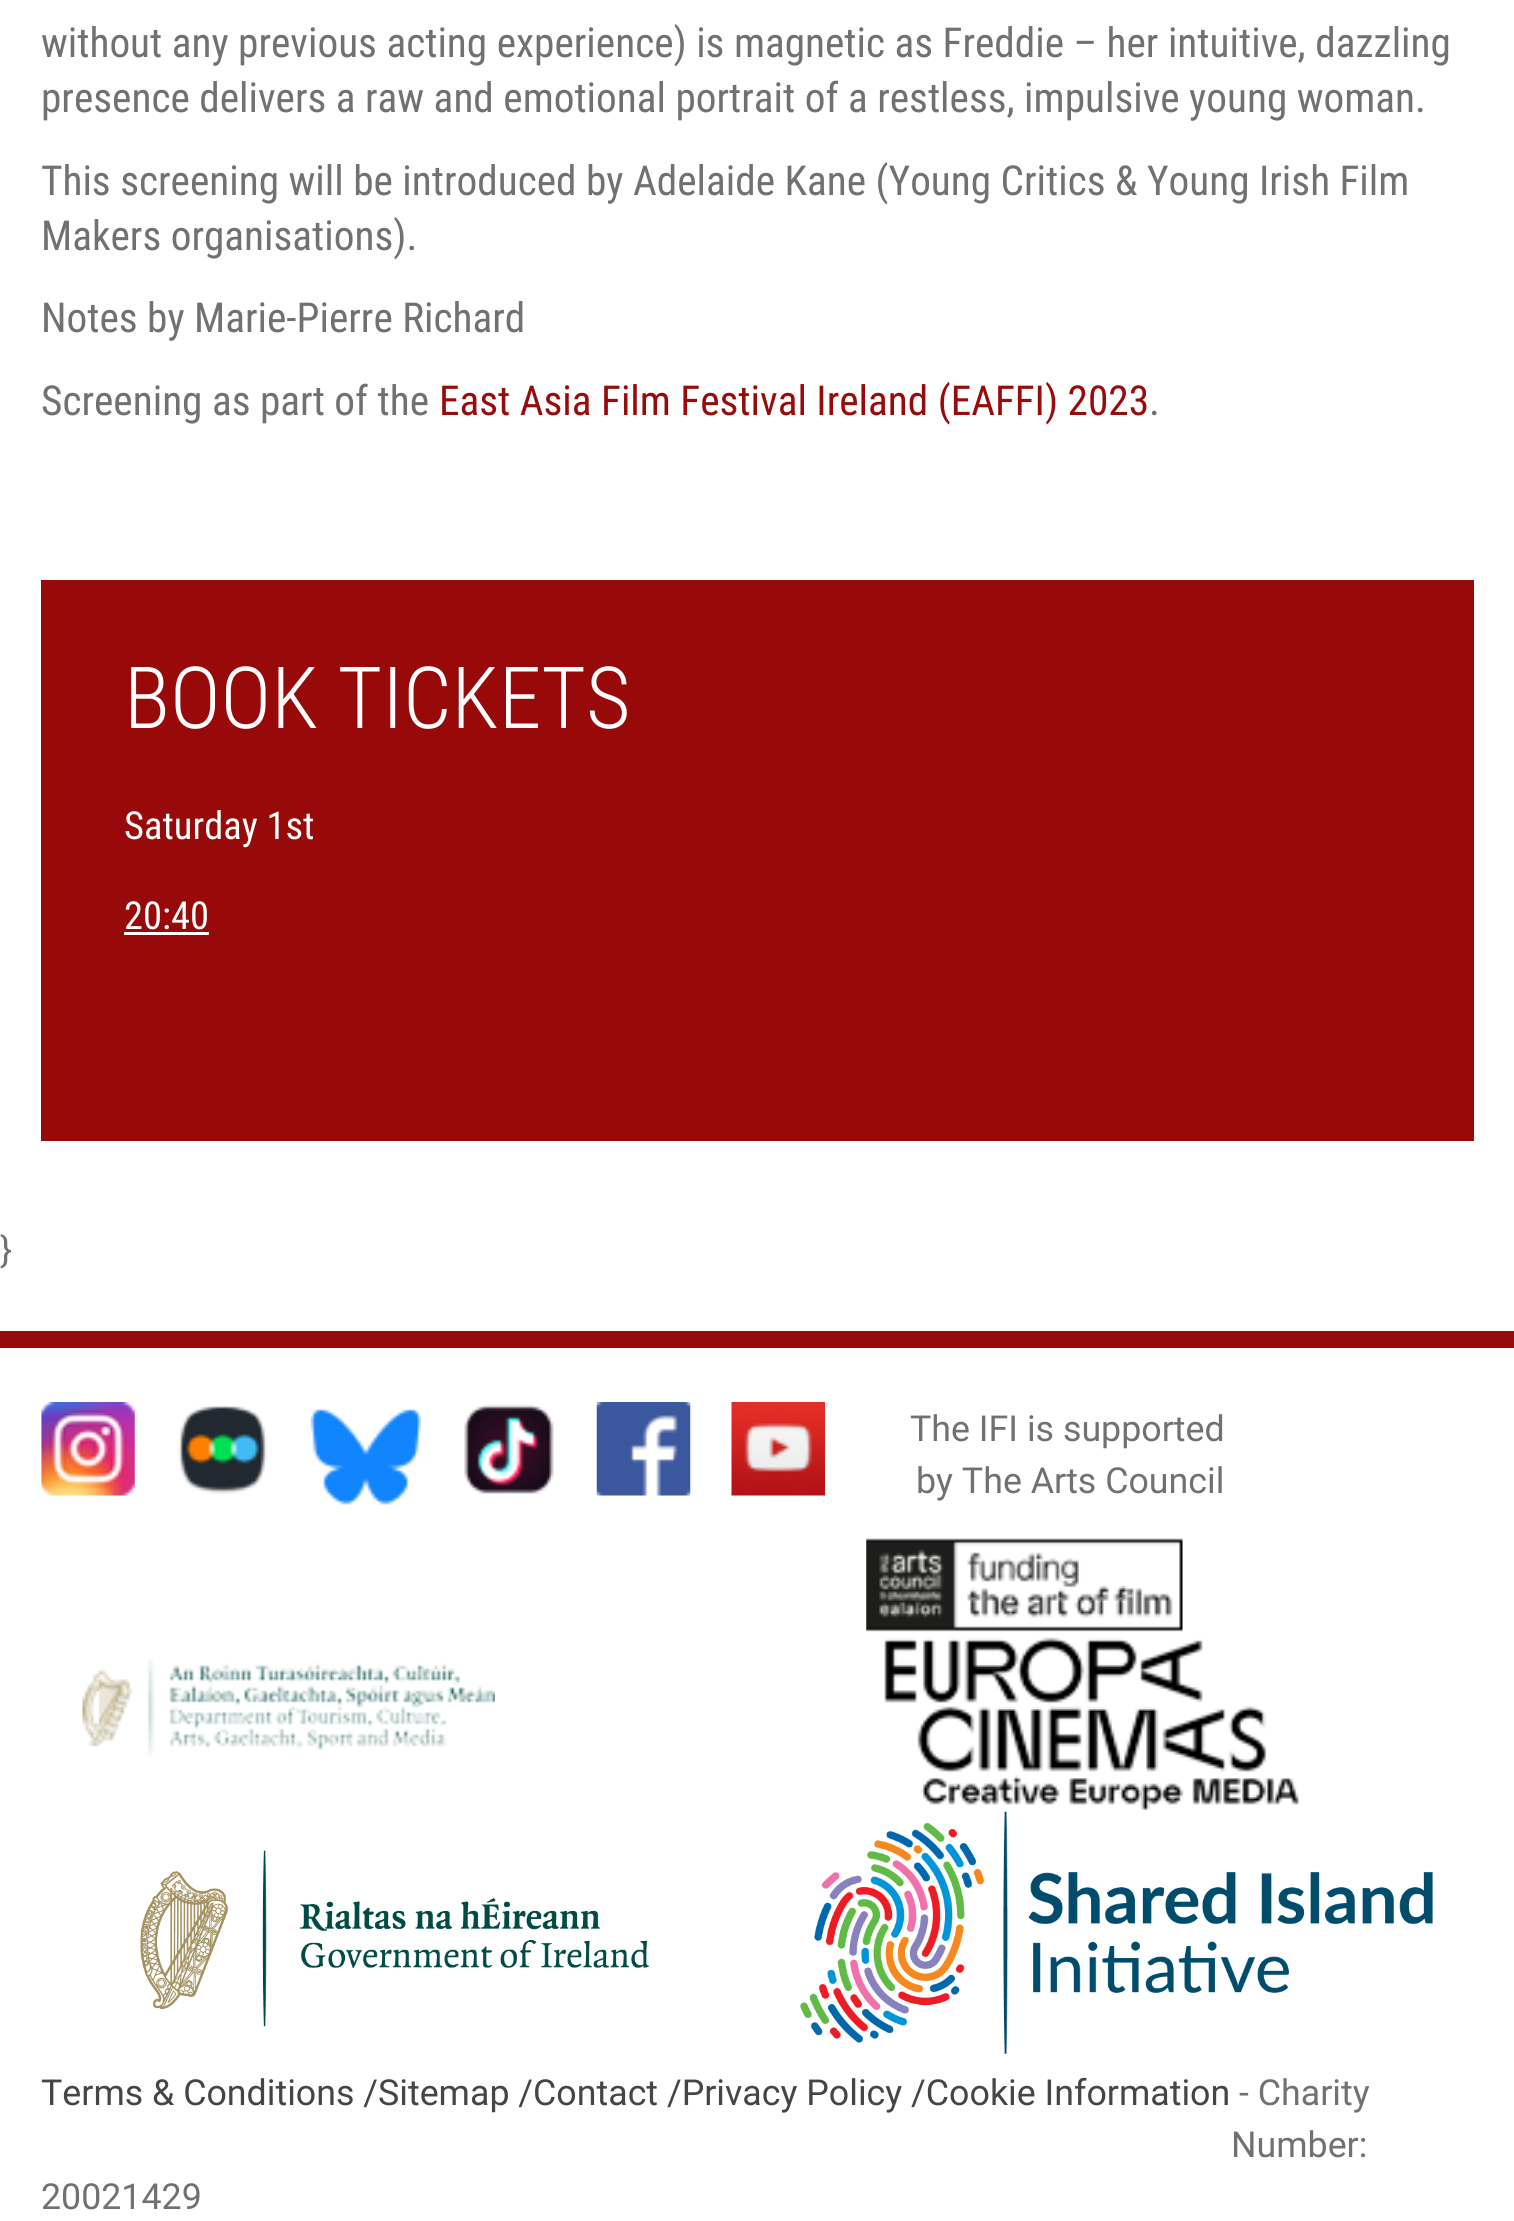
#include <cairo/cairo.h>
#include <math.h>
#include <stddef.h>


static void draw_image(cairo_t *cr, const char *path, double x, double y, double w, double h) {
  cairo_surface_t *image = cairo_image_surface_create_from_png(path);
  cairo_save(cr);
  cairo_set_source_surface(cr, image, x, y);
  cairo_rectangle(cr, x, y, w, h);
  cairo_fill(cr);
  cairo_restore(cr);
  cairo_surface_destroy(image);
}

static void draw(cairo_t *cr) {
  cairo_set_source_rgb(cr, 1, 1, 1);
  cairo_paint(cr);
  cairo_set_source_rgb(cr, 152 / 255.0, 10 / 255.0, 10 / 255.0);
  cairo_rectangle(cr, 41, 580, 1433, 561);
  cairo_fill(cr);
  cairo_set_source_rgb(cr, 1, 1, 1);
  cairo_rectangle(cr, 124, 932, 85, 3);
  cairo_fill(cr);
  cairo_set_source_rgb(cr, 152 / 255.0, 11 / 255.0, 11 / 255.0);
  cairo_rectangle(cr, 0, 1331, 1514, 17);
  cairo_fill(cr);
  draw_image(cr, "images/1.png", 41, 1402, 94, 94);
  draw_image(cr, "images/2.png", 178, 1405, 90, 89);
  draw_image(cr, "images/3.png", 310, 1408, 111, 97);
  draw_image(cr, "images/4.png", 464, 1404, 90, 90);
  draw_image(cr, "images/5.png", 596, 1402, 95, 94);
  draw_image(cr, "images/6.png", 731, 1402, 94, 94);
  draw_image(cr, "images/7.png", 866, 1538, 317, 94);
  draw_image(cr, "images/8.png", 82, 1659, 413, 97);
  draw_image(cr, "images/9.png", 884, 1637, 415, 174);
  draw_image(cr, "images/10.png", 140, 1850, 509, 177);
  draw_image(cr, "images/11.png", 800, 1811, 633, 243);
  cairo_select_font_face(cr, "Roboto Condensed", CAIRO_FONT_SLANT_NORMAL, CAIRO_FONT_WEIGHT_NORMAL);
  cairo_set_font_size(cr, 41.25);
  cairo_set_source_rgb(cr, 113 / 255.0, 113 / 255.0, 113 / 255.0);
  cairo_move_to(cr, 41, 57);
  cairo_show_text(cr, "without any previous acting experience) is magnetic as Freddie – her intuitive, dazzling");
  cairo_move_to(cr, 41, 112);
  cairo_show_text(cr, "presence delivers a raw and emotional portrait of a restless, impulsive young woman.");
  cairo_move_to(cr, 41, 195);
  cairo_show_text(cr, "This screening will be introduced by Adelaide Kane (Young Critics & Young Irish Film");
  cairo_move_to(cr, 41, 250);
  cairo_show_text(cr, "Makers organisations).");
  cairo_move_to(cr, 41, 332);
  cairo_show_text(cr, "Notes by Marie-Pierre Richard");
  cairo_move_to(cr, 41, 415);
  cairo_show_text(cr, "Screening as part of the");
  cairo_set_source_rgb(cr, 152 / 255.0, 11 / 255.0, 11 / 255.0);
  cairo_move_to(cr, 439, 415);
  cairo_show_text(cr, "East Asia Film Festival Ireland (EAFFI) 2023");
  cairo_set_source_rgb(cr, 113 / 255.0, 113 / 255.0, 113 / 255.0);
  cairo_move_to(cr, 1149, 415);
  cairo_show_text(cr, ".");
  cairo_select_font_face(cr, "Roboto Condensed Light", CAIRO_FONT_SLANT_NORMAL, CAIRO_FONT_WEIGHT_NORMAL);
  cairo_set_font_size(cr, 85.75);
  cairo_set_source_rgb(cr, 1, 1, 1);
  cairo_move_to(cr, 124, 728);
  cairo_show_text(cr, "BOOK TICKETS");
  cairo_select_font_face(cr, "Roboto Condensed", CAIRO_FONT_SLANT_NORMAL, CAIRO_FONT_WEIGHT_NORMAL);
  cairo_set_font_size(cr, 38.5);
  cairo_move_to(cr, 124, 839);
  cairo_show_text(cr, "Saturday 1st");
  cairo_move_to(cr, 124, 929);
  cairo_show_text(cr, "20:40");
  cairo_select_font_face(cr, "Roboto", CAIRO_FONT_SLANT_NORMAL, CAIRO_FONT_WEIGHT_NORMAL);
  cairo_set_font_size(cr, 35.75);
  cairo_set_source_rgb(cr, 113 / 255.0, 113 / 255.0, 113 / 255.0);
  cairo_move_to(cr, 0, 1262);
  cairo_show_text(cr, "}");
  cairo_move_to(cr, 910, 1441);
  cairo_show_text(cr, "The IFI is supported");
  cairo_move_to(cr, 916, 1493);
  cairo_show_text(cr, "by The Arts Council");
  cairo_set_source_rgb(cr, 69 / 255.0, 69 / 255.0, 69 / 255.0);
  cairo_move_to(cr, 41, 2105);
  cairo_show_text(cr, "Terms & Conditions /Sitemap /Contact /Privacy Policy /Cookie Information");
  cairo_set_source_rgb(cr, 113 / 255.0, 113 / 255.0, 113 / 255.0);
  cairo_move_to(cr, 1239, 2105);
  cairo_show_text(cr, "- Charity");
  cairo_move_to(cr, 1231, 2157);
  cairo_show_text(cr, "Number:");
  cairo_move_to(cr, 41, 2209);
  cairo_show_text(cr, "20021429");
}

int main(void) {
  cairo_surface_t *surface = cairo_image_surface_create(CAIRO_FORMAT_RGB24, 1514, 2221);
  cairo_t *cr = cairo_create(surface);
  cairo_font_options_t *options = cairo_font_options_create();
  cairo_font_options_set_hint_metrics(options, CAIRO_HINT_METRICS_OFF);
  cairo_font_options_set_hint_style(options, CAIRO_HINT_STYLE_NONE);
  cairo_set_font_options(cr, options);
  cairo_set_miter_limit(cr, 4);
  draw(cr);
  cairo_surface_write_to_png(surface, "out.png");
  cairo_font_options_destroy(options);
  cairo_destroy(cr);
  cairo_surface_destroy(surface);
  return 0;
}
